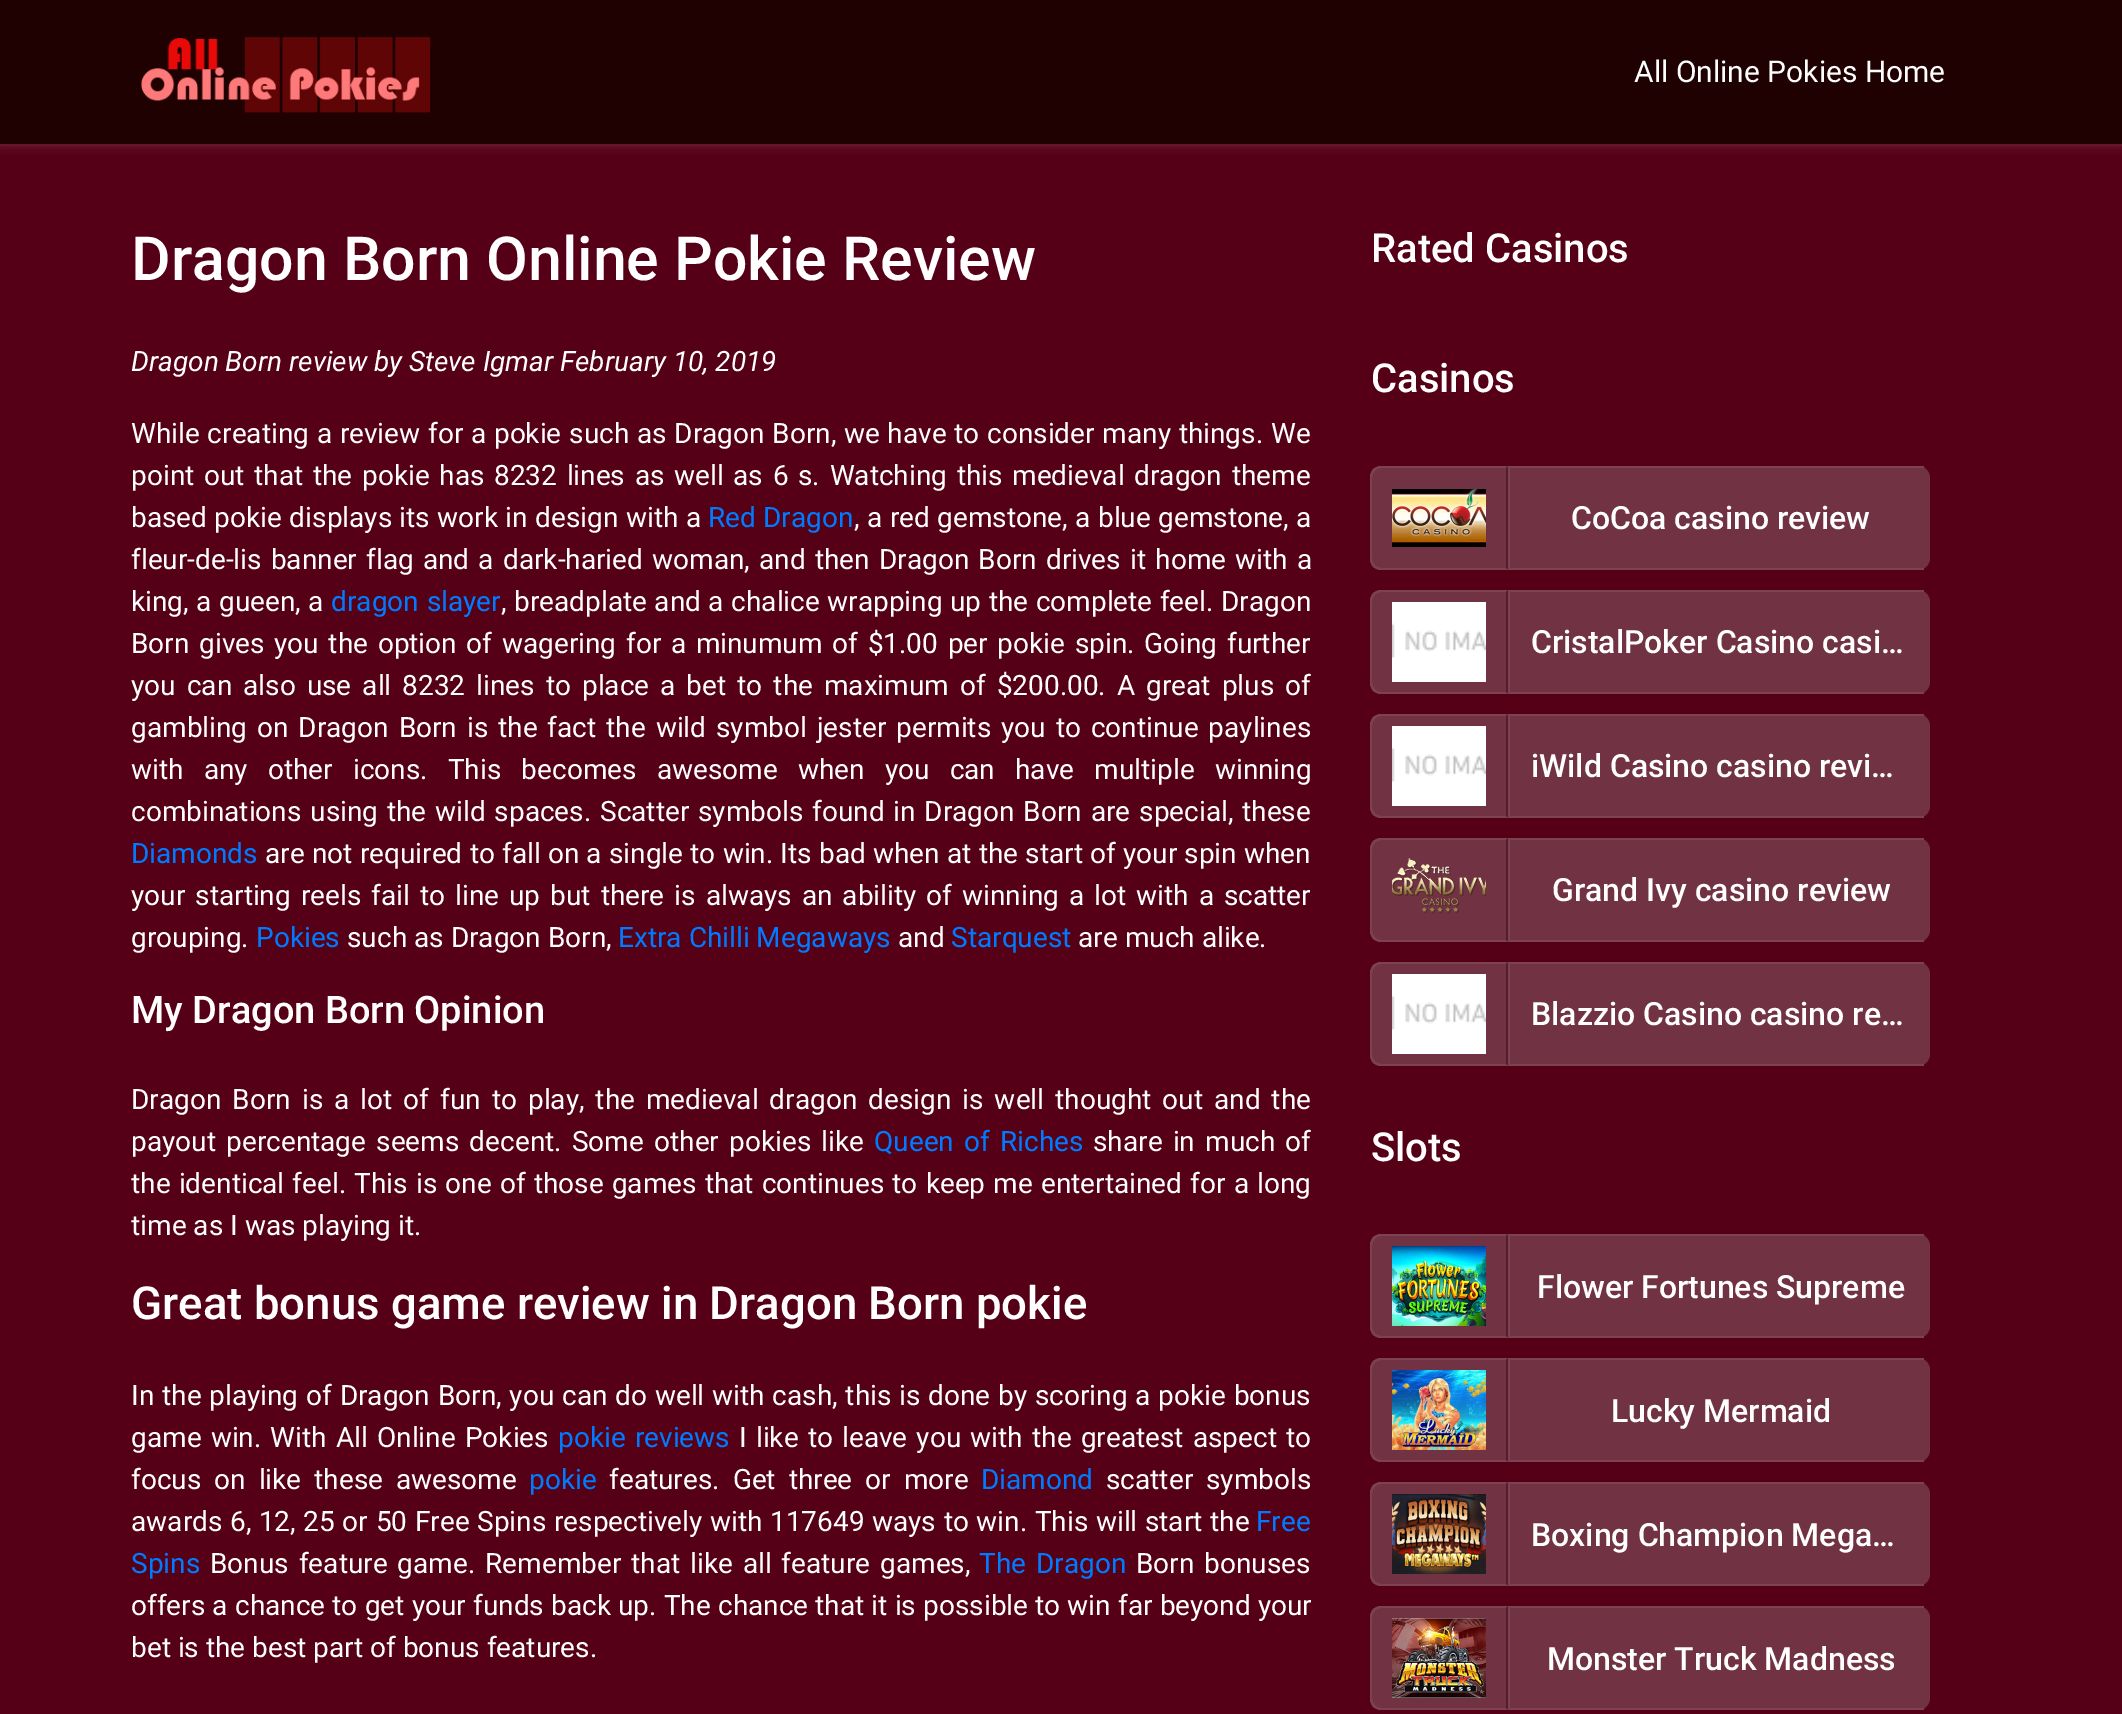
%!PS-Adobe-3.0
%%BoundingBox: 0 0 2122 1714
%%LanguageLevel: 3
%%Pages: 1
%%EndComments
%%BeginProlog
/setink { 3 { 255 div 3 1 roll } repeat setrgbcolor } def
/usefont { [ exch dup neg 0 0 3 -1 roll 0 0 ] selectfont } def
/drawtext { setink usefont moveto show } def
/fillbox { setink rectfill } def
/setalpha { dup .setfillconstantalpha .setstrokeconstantalpha } def
/rrect { 5 dict begin { /r /h /w /y /x } { exch def } forall
  x r add y moveto x w add y 2 copy h add r arct x w add y h add x 1 index r arct
  x y h add x y r arct x y 2 copy exch w add exch r arct closepath end } def
/softshadow { 12 dict begin { /a /b /q /h /w /y /x } { exch def } forall gsave /was 0 def
  9 -2 -9 { dup b mul 4 div /e exch def 1 sub .425 mul 2.718 exch exp 1 add a .99 .min exch div /now exch def
    1 1 now sub 1 was sub div sub setalpha /was now def
    w h .min e 2 mul add 0 gt { x e sub y e sub w e 2 mul add h e 2 mul add
      q e add b .6 mul add w h .min 2 div e add .min 0 .max rrect fill } if } for grestore end } def
/drawimage { 5 dict begin { /h /w /y /x /name } { exch def } forall
  gsave x y translate w h scale
  w h 8 [w 0 0 h 0 0] name (r) file false 3 colorimage grestore end } def
%%EndProlog
%%BeginSetup
<< /PageSize [2122 1714] /PageUsesTransparency true >> setpagedevice
%%EndSetup
%%Page: 1 1
0 .pushpdf14devicefilter
0 1714 translate 1 -1 scale
4 setmiterlimit
0 0 2122 1714 86 0 23 fillbox
255 255 255 setink
0 -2 2122 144 0 6 0.3 softshadow
0 0 2122 144 32 1 1 fillbox
(assets/img1.rgb) 141 37 290 76 drawimage
(All Online Pokies Home) 1634 82 /Roboto-Regular 30 255 255 255 drawtext
(Dragon Born Online Pokie Review) 131 280 /Roboto-Medium 60.75 255 255 255 drawtext
(Dragon Born review by Steve Igmar February 10, 2019) 131 371 /Roboto-Italic 28 255 255 255 drawtext
/Roboto-Regular 28 usefont
131 443 moveto 0.8 0 32 (While creating a review for a pokie such as Dragon Born, we have to consider many things. We) widthshow
131 485 moveto 2.75 0 32 (point out that the pokie has 8232 lines as well as 6 s. Watching this medieval dragon theme) widthshow
131 527 moveto 0.5 0 32 (based pokie displays its work in design with a) widthshow
(Red Dragon) 708 527 /Roboto-Regular 28 0 123 255 drawtext
255 255 255 setink
854 527 moveto 0.5 0 32 (, a red gemstone, a blue gemstone, a) widthshow
131 569 moveto 2.25 0 32 (fleur-de-lis banner flag and a dark-haried woman, and then Dragon Born drives it home with a) widthshow
131 611 moveto 0.6 0 32 (king, a gueen, a) widthshow
0 123 255 setink
331 611 moveto 1 0 32 (dragon slayer) widthshow
255 255 255 setink
501 611 moveto 0.6 0 32 (, breadplate and a chalice wrapping up the complete feel. Dragon) widthshow
131 653 moveto 2.75 0 32 (Born gives you the option of wagering for a minumum of $1.00 per pokie spin. Going further) widthshow
131 695 moveto 4.1 0 32 (you can also use all 8232 lines to place a bet to the maximum of $200.00. A great plus of) widthshow
131 737 moveto 3 0 32 (gambling on Dragon Born is the fact the wild symbol jester permits you to continue paylines) widthshow
131 779 moveto 13.25 0 32 (with any other icons. This becomes awesome when you can have multiple winning) widthshow
131 821 moveto 1.9 0 32 (combinations using the wild spaces. Scatter symbols found in Dragon Born are special, these) widthshow
(Diamonds) 131 863 /Roboto-Regular 28 0 123 255 drawtext
255 255 255 setink
265 863 moveto 0.3 0 32 (are not required to fall on a single to win. Its bad when at the start of your spin when) widthshow
131 905 moveto 3.1 0 32 (your starting reels fail to line up but there is always an ability of winning a lot with a scatter) widthshow
(grouping.) 131 947 /Roboto-Regular 28 255 255 255 drawtext
(Pokies) 256 947 /Roboto-Regular 28 0 123 255 drawtext
(such as Dragon Born,) 347 947 /Roboto-Regular 28 255 255 255 drawtext
(Extra Chilli Megaways) 618 947 /Roboto-Regular 28 0 123 255 drawtext
(and) 898 947 /Roboto-Regular 28 255 255 255 drawtext
(Starquest) 951 947 /Roboto-Regular 28 0 123 255 drawtext
(are much alike.) 1078 947 /Roboto-Regular 28 255 255 255 drawtext
(My Dragon Born Opinion) 131 1023 /Roboto-Medium 38 255 255 255 drawtext
/Roboto-Regular 28 usefont
131 1109 moveto 4.1 0 32 (Dragon Born is a lot of fun to play, the medieval dragon design is well thought out and the) widthshow
131 1151 moveto 3.25 0 32 (payout percentage seems decent. Some other pokies like) widthshow
0 123 255 setink
874 1151 moveto 3.25 0 32 (Queen of Riches) widthshow
255 255 255 setink
1093 1151 moveto 3.25 0 32 (share in much of) widthshow
131 1193 moveto 1.25 0 32 (the identical feel. This is one of those games that continues to keep me entertained for a long) widthshow
(time as I was playing it.) 131 1235 /Roboto-Regular 28 255 255 255 drawtext
(Great bonus game review in Dragon Born pokie) 131 1319 /Roboto-Medium 45.6 255 255 255 drawtext
/Roboto-Regular 28 usefont
131 1405 moveto 0.9 0 32 (In the playing of Dragon Born, you can do well with cash, this is done by scoring a pokie bonus) widthshow
131 1447 moveto 2.25 0 32 (game win. With All Online Pokies) widthshow
0 123 255 setink
558 1447 moveto 2.25 0 32 (pokie reviews) widthshow
255 255 255 setink
739 1447 moveto 2.25 0 32 (I like to leave you with the greatest aspect to) widthshow
131 1489 moveto 6 0 32 (focus on like these awesome) widthshow
(pokie) 529 1489 /Roboto-Regular 28 0 123 255 drawtext
255 255 255 setink
609 1489 moveto 6 0 32 (features. Get three or more) widthshow
(Diamond) 981 1489 /Roboto-Regular 28 0 123 255 drawtext
255 255 255 setink
1106 1489 moveto 6 0 32 (scatter symbols) widthshow
131 1531 moveto 0.7 0 32 (awards 6, 12, 25 or 50 Free Spins respectively with 117649 ways to win. This will start the) widthshow
(Free) 1256 1531 /Roboto-Regular 28 0 123 255 drawtext
(Spins) 131 1573 /Roboto-Regular 28 0 123 255 drawtext
255 255 255 setink
210 1573 moveto 3 0 32 (Bonus feature game. Remember that like all feature games,) widthshow
0 123 255 setink
979 1573 moveto 3 0 32 (The Dragon) widthshow
255 255 255 setink
1136 1573 moveto 3 0 32 (Born bonuses) widthshow
131 1615 moveto 0.25 0 32 (offers a chance to get your funds back up. The chance that it is possible to win far beyond your) widthshow
(bet is the best part of bonus features.) 131 1657 /Roboto-Regular 28 255 255 255 drawtext
(Rated Casinos) 1371 262 /Roboto-Medium 40 255 255 255 drawtext
(Casinos) 1371 392 /Roboto-Medium 40 255 255 255 drawtext
113 51 68 setink
1382 466 moveto 1508 466 lineto 1508 570 lineto 1382 570 lineto 1375.5 570 1370 564.5 1370 558 curveto 1370 478 lineto 1370 471.5 1375.5 466 1382 466 curveto closepath fill
125 66 82 setink
1382 466 moveto 1378 466 1376 467 1373 469 curveto 1375 471 lineto 1376 469 1379 468 1382 468 curveto 1506 468 lineto 1508 466 lineto closepath fill
84 28 44 setink
1508 466 moveto 1506 468 lineto 1506 568 lineto 1508 570 lineto closepath fill
125 66 82 setink
1508 570 moveto 1506 568 lineto 1382 568 lineto 1379 568 1376 567 1375 565 curveto 1373 567 lineto 1376 569 1378 570 1382 570 curveto closepath fill
1370 478 moveto 1370 558 lineto 1370 562 1371 564 1373 567 curveto 1375 565 lineto 1373 564 1372 561 1372 558 curveto 1372 478 lineto 1372 475 1373 472 1375 471 curveto 1373 469 lineto 1371 472 1370 474 1370 478 curveto closepath fill
(assets/img2.rgb) 1392 489 94 58 drawimage
113 51 68 setink
1508 466 moveto 1918 466 lineto 1924.5 466 1930 471.5 1930 478 curveto 1930 558 lineto 1930 564.5 1924.5 570 1918 570 curveto 1508 570 lineto closepath fill
1508 466 416 2 125 66 82 fillbox
1508 568 416 2 125 66 82 fillbox
1508 466 2 104 125 66 82 fillbox
(CoCoa casino review) 1571 529 /Roboto-Medium 32 255 255 255 drawtext
113 51 68 setink
1382 590 moveto 1508 590 lineto 1508 694 lineto 1382 694 lineto 1375.5 694 1370 688.5 1370 682 curveto 1370 602 lineto 1370 595.5 1375.5 590 1382 590 curveto closepath fill
125 66 82 setink
1382 590 moveto 1378 590 1376 591 1373 593 curveto 1375 595 lineto 1376 593 1379 592 1382 592 curveto 1506 592 lineto 1508 590 lineto closepath fill
84 28 44 setink
1508 590 moveto 1506 592 lineto 1506 692 lineto 1508 694 lineto closepath fill
125 66 82 setink
1508 694 moveto 1506 692 lineto 1382 692 lineto 1379 692 1376 691 1375 689 curveto 1373 691 lineto 1376 693 1378 694 1382 694 curveto closepath fill
1370 602 moveto 1370 682 lineto 1370 686 1371 688 1373 691 curveto 1375 689 lineto 1373 688 1372 685 1372 682 curveto 1372 602 lineto 1372 599 1373 596 1375 595 curveto 1373 593 lineto 1371 596 1370 598 1370 602 curveto closepath fill
(assets/img3.rgb) 1392 602 94 80 drawimage
113 51 68 setink
1508 590 moveto 1918 590 lineto 1924.5 590 1930 595.5 1930 602 curveto 1930 682 lineto 1930 688.5 1924.5 694 1918 694 curveto 1508 694 lineto closepath fill
1508 590 416 2 125 66 82 fillbox
1508 692 416 2 125 66 82 fillbox
1508 590 2 104 125 66 82 fillbox
(CristalPoker Casino casi…) 1531 653 /Roboto-Medium 32 255 255 255 drawtext
113 51 68 setink
1382 714 moveto 1508 714 lineto 1508 818 lineto 1382 818 lineto 1375.5 818 1370 812.5 1370 806 curveto 1370 726 lineto 1370 719.5 1375.5 714 1382 714 curveto closepath fill
125 66 82 setink
1382 714 moveto 1378 714 1376 715 1373 717 curveto 1375 719 lineto 1376 717 1379 716 1382 716 curveto 1506 716 lineto 1508 714 lineto closepath fill
84 28 44 setink
1508 714 moveto 1506 716 lineto 1506 816 lineto 1508 818 lineto closepath fill
125 66 82 setink
1508 818 moveto 1506 816 lineto 1382 816 lineto 1379 816 1376 815 1375 813 curveto 1373 815 lineto 1376 817 1378 818 1382 818 curveto closepath fill
1370 726 moveto 1370 806 lineto 1370 810 1371 812 1373 815 curveto 1375 813 lineto 1373 812 1372 809 1372 806 curveto 1372 726 lineto 1372 723 1373 720 1375 719 curveto 1373 717 lineto 1371 720 1370 722 1370 726 curveto closepath fill
(assets/img3.rgb) 1392 726 94 80 drawimage
113 51 68 setink
1508 714 moveto 1918 714 lineto 1924.5 714 1930 719.5 1930 726 curveto 1930 806 lineto 1930 812.5 1924.5 818 1918 818 curveto 1508 818 lineto closepath fill
1508 714 416 2 125 66 82 fillbox
1508 816 416 2 125 66 82 fillbox
1508 714 2 104 125 66 82 fillbox
(iWild Casino casino revi…) 1531 777 /Roboto-Medium 32 255 255 255 drawtext
113 51 68 setink
1382 838 moveto 1508 838 lineto 1508 942 lineto 1382 942 lineto 1375.5 942 1370 936.5 1370 930 curveto 1370 850 lineto 1370 843.5 1375.5 838 1382 838 curveto closepath fill
125 66 82 setink
1382 838 moveto 1378 838 1376 839 1373 841 curveto 1375 843 lineto 1376 841 1379 840 1382 840 curveto 1506 840 lineto 1508 838 lineto closepath fill
84 28 44 setink
1508 838 moveto 1506 840 lineto 1506 940 lineto 1508 942 lineto closepath fill
125 66 82 setink
1508 942 moveto 1506 940 lineto 1382 940 lineto 1379 940 1376 939 1375 937 curveto 1373 939 lineto 1376 941 1378 942 1382 942 curveto closepath fill
1370 850 moveto 1370 930 lineto 1370 934 1371 936 1373 939 curveto 1375 937 lineto 1373 936 1372 933 1372 930 curveto 1372 850 lineto 1372 847 1373 844 1375 843 curveto 1373 841 lineto 1371 844 1370 846 1370 850 curveto closepath fill
(assets/img4.rgb) 1392 858 94 56 drawimage
113 51 68 setink
1508 838 moveto 1918 838 lineto 1924.5 838 1930 843.5 1930 850 curveto 1930 930 lineto 1930 936.5 1924.5 942 1918 942 curveto 1508 942 lineto closepath fill
1508 838 416 2 125 66 82 fillbox
1508 940 416 2 125 66 82 fillbox
1508 838 2 104 125 66 82 fillbox
(Grand Ivy casino review) 1552 901 /Roboto-Medium 32 255 255 255 drawtext
113 51 68 setink
1382 962 moveto 1508 962 lineto 1508 1066 lineto 1382 1066 lineto 1375.5 1066 1370 1060.5 1370 1054 curveto 1370 974 lineto 1370 967.5 1375.5 962 1382 962 curveto closepath fill
125 66 82 setink
1382 962 moveto 1378 962 1376 963 1373 965 curveto 1375 967 lineto 1376 965 1379 964 1382 964 curveto 1506 964 lineto 1508 962 lineto closepath fill
84 28 44 setink
1508 962 moveto 1506 964 lineto 1506 1064 lineto 1508 1066 lineto closepath fill
125 66 82 setink
1508 1066 moveto 1506 1064 lineto 1382 1064 lineto 1379 1064 1376 1063 1375 1061 curveto 1373 1063 lineto 1376 1065 1378 1066 1382 1066 curveto closepath fill
1370 974 moveto 1370 1054 lineto 1370 1058 1371 1060 1373 1063 curveto 1375 1061 lineto 1373 1060 1372 1057 1372 1054 curveto 1372 974 lineto 1372 971 1373 968 1375 967 curveto 1373 965 lineto 1371 968 1370 970 1370 974 curveto closepath fill
(assets/img5.rgb) 1392 974 94 80 drawimage
113 51 68 setink
1508 962 moveto 1918 962 lineto 1924.5 962 1930 967.5 1930 974 curveto 1930 1054 lineto 1930 1060.5 1924.5 1066 1918 1066 curveto 1508 1066 lineto closepath fill
1508 962 416 2 125 66 82 fillbox
1508 1064 416 2 125 66 82 fillbox
1508 962 2 104 125 66 82 fillbox
(Blazzio Casino casino re…) 1531 1025 /Roboto-Medium 32 255 255 255 drawtext
(Slots) 1371 1161 /Roboto-Medium 40 255 255 255 drawtext
113 51 68 setink
1382 1234 moveto 1508 1234 lineto 1508 1338 lineto 1382 1338 lineto 1375.5 1338 1370 1332.5 1370 1326 curveto 1370 1246 lineto 1370 1239.5 1375.5 1234 1382 1234 curveto closepath fill
125 66 82 setink
1382 1234 moveto 1378 1234 1376 1235 1373 1237 curveto 1375 1239 lineto 1376 1237 1379 1236 1382 1236 curveto 1506 1236 lineto 1508 1234 lineto closepath fill
84 28 44 setink
1508 1234 moveto 1506 1236 lineto 1506 1336 lineto 1508 1338 lineto closepath fill
125 66 82 setink
1508 1338 moveto 1506 1336 lineto 1382 1336 lineto 1379 1336 1376 1335 1375 1333 curveto 1373 1335 lineto 1376 1337 1378 1338 1382 1338 curveto closepath fill
1370 1246 moveto 1370 1326 lineto 1370 1330 1371 1332 1373 1335 curveto 1375 1333 lineto 1373 1332 1372 1329 1372 1326 curveto 1372 1246 lineto 1372 1243 1373 1240 1375 1239 curveto 1373 1237 lineto 1371 1240 1370 1242 1370 1246 curveto closepath fill
(assets/img6.rgb) 1392 1246 94 80 drawimage
113 51 68 setink
1508 1234 moveto 1918 1234 lineto 1924.5 1234 1930 1239.5 1930 1246 curveto 1930 1326 lineto 1930 1332.5 1924.5 1338 1918 1338 curveto 1508 1338 lineto closepath fill
1508 1234 416 2 125 66 82 fillbox
1508 1336 416 2 125 66 82 fillbox
1508 1234 2 104 125 66 82 fillbox
(Flower Fortunes Supreme) 1537 1298 /Roboto-Medium 32 255 255 255 drawtext
113 51 68 setink
1382 1358 moveto 1508 1358 lineto 1508 1462 lineto 1382 1462 lineto 1375.5 1462 1370 1456.5 1370 1450 curveto 1370 1370 lineto 1370 1363.5 1375.5 1358 1382 1358 curveto closepath fill
125 66 82 setink
1382 1358 moveto 1378 1358 1376 1359 1373 1361 curveto 1375 1363 lineto 1376 1361 1379 1360 1382 1360 curveto 1506 1360 lineto 1508 1358 lineto closepath fill
84 28 44 setink
1508 1358 moveto 1506 1360 lineto 1506 1460 lineto 1508 1462 lineto closepath fill
125 66 82 setink
1508 1462 moveto 1506 1460 lineto 1382 1460 lineto 1379 1460 1376 1459 1375 1457 curveto 1373 1459 lineto 1376 1461 1378 1462 1382 1462 curveto closepath fill
1370 1370 moveto 1370 1450 lineto 1370 1454 1371 1456 1373 1459 curveto 1375 1457 lineto 1373 1456 1372 1453 1372 1450 curveto 1372 1370 lineto 1372 1367 1373 1364 1375 1363 curveto 1373 1361 lineto 1371 1364 1370 1366 1370 1370 curveto closepath fill
(assets/img7.rgb) 1392 1370 94 80 drawimage
113 51 68 setink
1508 1358 moveto 1918 1358 lineto 1924.5 1358 1930 1363.5 1930 1370 curveto 1930 1450 lineto 1930 1456.5 1924.5 1462 1918 1462 curveto 1508 1462 lineto closepath fill
1508 1358 416 2 125 66 82 fillbox
1508 1460 416 2 125 66 82 fillbox
1508 1358 2 104 125 66 82 fillbox
(Lucky Mermaid) 1611 1422 /Roboto-Medium 32 255 255 255 drawtext
113 51 68 setink
1382 1482 moveto 1508 1482 lineto 1508 1586 lineto 1382 1586 lineto 1375.5 1586 1370 1580.5 1370 1574 curveto 1370 1494 lineto 1370 1487.5 1375.5 1482 1382 1482 curveto closepath fill
125 66 82 setink
1382 1482 moveto 1378 1482 1376 1483 1373 1485 curveto 1375 1487 lineto 1376 1485 1379 1484 1382 1484 curveto 1506 1484 lineto 1508 1482 lineto closepath fill
84 28 44 setink
1508 1482 moveto 1506 1484 lineto 1506 1584 lineto 1508 1586 lineto closepath fill
125 66 82 setink
1508 1586 moveto 1506 1584 lineto 1382 1584 lineto 1379 1584 1376 1583 1375 1581 curveto 1373 1583 lineto 1376 1585 1378 1586 1382 1586 curveto closepath fill
1370 1494 moveto 1370 1574 lineto 1370 1578 1371 1580 1373 1583 curveto 1375 1581 lineto 1373 1580 1372 1577 1372 1574 curveto 1372 1494 lineto 1372 1491 1373 1488 1375 1487 curveto 1373 1485 lineto 1371 1488 1370 1490 1370 1494 curveto closepath fill
(assets/img8.rgb) 1392 1494 94 80 drawimage
113 51 68 setink
1508 1482 moveto 1918 1482 lineto 1924.5 1482 1930 1487.5 1930 1494 curveto 1930 1574 lineto 1930 1580.5 1924.5 1586 1918 1586 curveto 1508 1586 lineto closepath fill
1508 1482 416 2 125 66 82 fillbox
1508 1584 416 2 125 66 82 fillbox
1508 1482 2 104 125 66 82 fillbox
(Boxing Champion Mega…) 1531 1546 /Roboto-Medium 32 255 255 255 drawtext
113 51 68 setink
1382 1606 moveto 1508 1606 lineto 1508 1710 lineto 1382 1710 lineto 1375.5 1710 1370 1704.5 1370 1698 curveto 1370 1618 lineto 1370 1611.5 1375.5 1606 1382 1606 curveto closepath fill
125 66 82 setink
1382 1606 moveto 1378 1606 1376 1607 1373 1609 curveto 1375 1611 lineto 1376 1609 1379 1608 1382 1608 curveto 1506 1608 lineto 1508 1606 lineto closepath fill
84 28 44 setink
1508 1606 moveto 1506 1608 lineto 1506 1708 lineto 1508 1710 lineto closepath fill
125 66 82 setink
1508 1710 moveto 1506 1708 lineto 1382 1708 lineto 1379 1708 1376 1707 1375 1705 curveto 1373 1707 lineto 1376 1709 1378 1710 1382 1710 curveto closepath fill
1370 1618 moveto 1370 1698 lineto 1370 1702 1371 1704 1373 1707 curveto 1375 1705 lineto 1373 1704 1372 1701 1372 1698 curveto 1372 1618 lineto 1372 1615 1373 1612 1375 1611 curveto 1373 1609 lineto 1371 1612 1370 1614 1370 1618 curveto closepath fill
(assets/img9.rgb) 1392 1618 94 80 drawimage
113 51 68 setink
1508 1606 moveto 1918 1606 lineto 1924.5 1606 1930 1611.5 1930 1618 curveto 1930 1698 lineto 1930 1704.5 1924.5 1710 1918 1710 curveto 1508 1710 lineto closepath fill
1508 1606 416 2 125 66 82 fillbox
1508 1708 416 2 125 66 82 fillbox
1508 1606 2 104 125 66 82 fillbox
(Monster Truck Madness) 1547 1670 /Roboto-Medium 32 255 255 255 drawtext
.poppdf14devicefilter showpage
%%EOF
